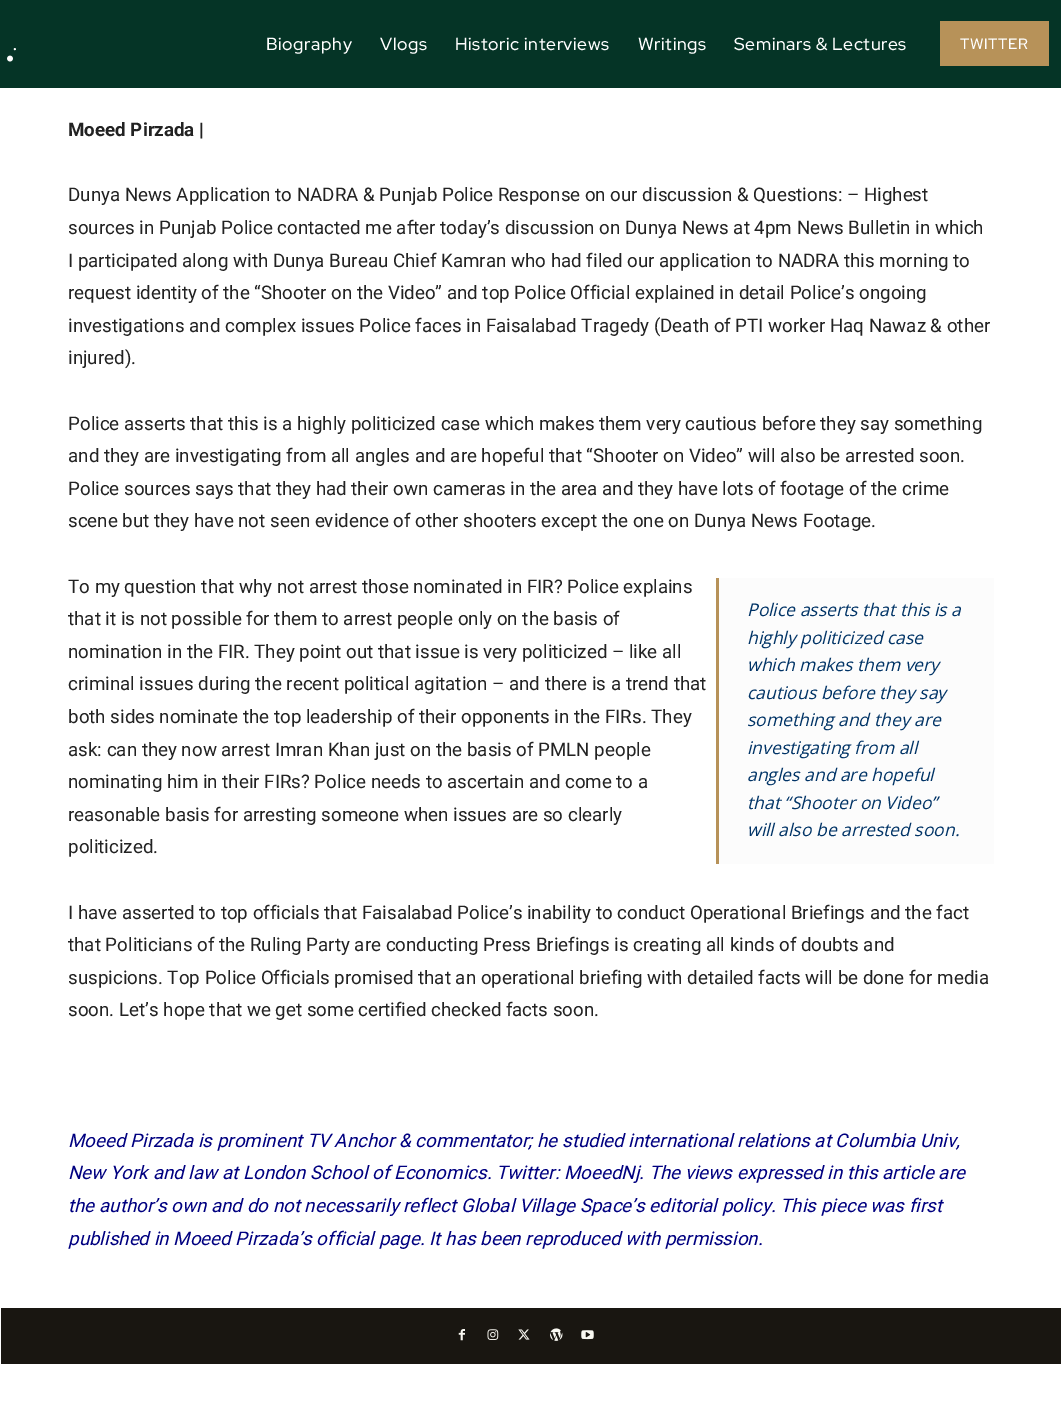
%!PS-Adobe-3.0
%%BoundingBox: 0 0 1061 1413
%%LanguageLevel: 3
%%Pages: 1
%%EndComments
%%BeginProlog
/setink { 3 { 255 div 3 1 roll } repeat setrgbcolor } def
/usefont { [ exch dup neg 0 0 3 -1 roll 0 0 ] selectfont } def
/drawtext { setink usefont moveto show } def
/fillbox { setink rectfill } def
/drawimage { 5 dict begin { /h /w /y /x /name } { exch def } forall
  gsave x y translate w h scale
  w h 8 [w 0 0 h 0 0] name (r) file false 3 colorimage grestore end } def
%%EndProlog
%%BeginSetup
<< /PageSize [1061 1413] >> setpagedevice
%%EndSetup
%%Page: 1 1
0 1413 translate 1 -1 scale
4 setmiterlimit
0 0 1061 1413 255 255 255 fillbox
0 0 1061 88 5 52 38 fillbox
(.) 13 50 /GildaDisplay-Regular 22 255 255 255 drawtext
(assets/img1.rgb) 7 55 6 7 drawimage
/RedHatDisplay-Medium 17.5 usefont
266 50 moveto 0.6 0 (Biography) ashow
380 50 moveto 0.6 0 (Vlogs) ashow
455 50 moveto 0.6 0 (Historic interviews) ashow
638 50 moveto 0.6 0 (Writings) ashow
734 50 moveto 0.6 0 (Seminars & Lectures) ashow
940 21 109 45 183 146 89 fillbox
/RedHatDisplay-Medium 15 usefont
255 255 255 setink
960 49 moveto 0.6 0 (TWITTER) ashow
(Moeed Pirzada |) 68 136 /Roboto-Bold 18.75 34 34 34 drawtext
(Dunya News Application to NADRA & Punjab Police Response on our discussion & Questions: – Highest) 68 201 /Roboto-Regular 18.75 34 34 34 drawtext
(sources in Punjab Police contacted me after today’s discussion on Dunya News at 4pm News Bulletin in which) 68 234 /Roboto-Regular 18.75 34 34 34 drawtext
(I participated along with Dunya Bureau Chief Kamran who had filed our application to NADRA this morning to) 68 267 /Roboto-Regular 18.75 34 34 34 drawtext
(request identity of the “Shooter on the Video” and top Police Official explained in detail Police’s ongoing) 68 299 /Roboto-Regular 18.75 34 34 34 drawtext
(investigations and complex issues Police faces in Faisalabad Tragedy \(Death of PTI worker Haq Nawaz & other) 68 332 /Roboto-Regular 18.75 34 34 34 drawtext
(injured\).) 68 364 /Roboto-Regular 18.75 34 34 34 drawtext
(Police asserts that this is a highly politicized case which makes them very cautious before they say something) 68 430 /Roboto-Regular 18.75 34 34 34 drawtext
(and they are investigating from all angles and are hopeful that “Shooter on Video” will also be arrested soon.) 68 462 /Roboto-Regular 18.75 34 34 34 drawtext
(Police sources says that they had their own cameras in the area and they have lots of footage of the crime) 68 495 /Roboto-Regular 18.75 34 34 34 drawtext
(scene but they have not seen evidence of other shooters except the one on Dunya News Footage.) 68 527 /Roboto-Regular 18.75 34 34 34 drawtext
(To my question that why not arrest those nominated in FIR? Police explains) 68 593 /Roboto-Regular 18.75 34 34 34 drawtext
(that it is not possible for them to arrest people only on the basis of) 68 625 /Roboto-Regular 18.75 34 34 34 drawtext
(nomination in the FIR. They point out that issue is very politicized – like all) 68 658 /Roboto-Regular 18.75 34 34 34 drawtext
(criminal issues during the recent political agitation – and there is a trend that) 68 690 /Roboto-Regular 18.75 34 34 34 drawtext
(both sides nominate the top leadership of their opponents in the FIRs. They) 68 723 /Roboto-Regular 18.75 34 34 34 drawtext
(ask: can they now arrest Imran Khan just on the basis of PMLN people) 68 756 /Roboto-Regular 18.75 34 34 34 drawtext
(nominating him in their FIRs? Police needs to ascertain and come to a) 68 788 /Roboto-Regular 18.75 34 34 34 drawtext
(reasonable basis for arresting someone when issues are so clearly) 68 821 /Roboto-Regular 18.75 34 34 34 drawtext
(politicized.) 68 853 /Roboto-Regular 18.75 34 34 34 drawtext
719 578 275 286 252 252 252 fillbox
716 578 3 286 183 146 89 fillbox
(Police asserts that this is a) 747 616 /OpenSans-Italic 17.5 0 51 102 drawtext
(highly politicized case) 747 644 /OpenSans-Italic 17.5 0 51 102 drawtext
(which makes them very) 747 671 /OpenSans-Italic 17.5 0 51 102 drawtext
(cautious before they say) 747 699 /OpenSans-Italic 17.5 0 51 102 drawtext
(something and they are) 747 726 /OpenSans-Italic 17.5 0 51 102 drawtext
(investigating from all) 747 754 /OpenSans-Italic 17.5 0 51 102 drawtext
(angles and are hopeful) 747 781 /OpenSans-Italic 17.5 0 51 102 drawtext
(that “Shooter on Video”) 747 809 /OpenSans-Italic 17.5 0 51 102 drawtext
(will also be arrested soon.) 747 836 /OpenSans-Italic 17.5 0 51 102 drawtext
(I have asserted to top officials that Faisalabad Police’s inability to conduct Operational Briefings and the fact) 68 919 /Roboto-Regular 18.75 34 34 34 drawtext
(that Politicians of the Ruling Party are conducting Press Briefings is creating all kinds of doubts and) 68 951 /Roboto-Regular 18.75 34 34 34 drawtext
(suspicions. Top Police Officials promised that an operational briefing with detailed facts will be done for media) 68 984 /Roboto-Regular 18.75 34 34 34 drawtext
(soon. Let’s hope that we get some certified checked facts soon.) 68 1016 /Roboto-Regular 18.75 34 34 34 drawtext
(Moeed Pirzada is prominent TV Anchor & commentator; he studied international relations at Columbia Univ,) 68 1147 /Roboto-Italic 18.75 0 0 128 drawtext
(New York and law at London School of Economics. Twitter: MoeedNj. The views expressed in this article are) 68 1179 /Roboto-Italic 18.75 0 0 128 drawtext
(the author’s own and do not necessarily reflect Global Village Space’s editorial policy. This piece was first) 68 1212 /Roboto-Italic 18.75 0 0 128 drawtext
(published in Moeed Pirzada’s official page. It has been reproduced with permission.) 68 1245 /Roboto-Italic 18.75 0 0 128 drawtext
1 1308 1060 56 25 22 17 fillbox
(assets/img2.rgb) 458 1329 7 12 drawimage
(assets/img3.rgb) 487 1329 12 11 drawimage
(assets/img4.rgb) 518 1329 12 11 drawimage
(assets/img5.rgb) 550 1328 13 13 drawimage
(assets/img6.rgb) 581 1330 13 10 drawimage
showpage
%%EOF
